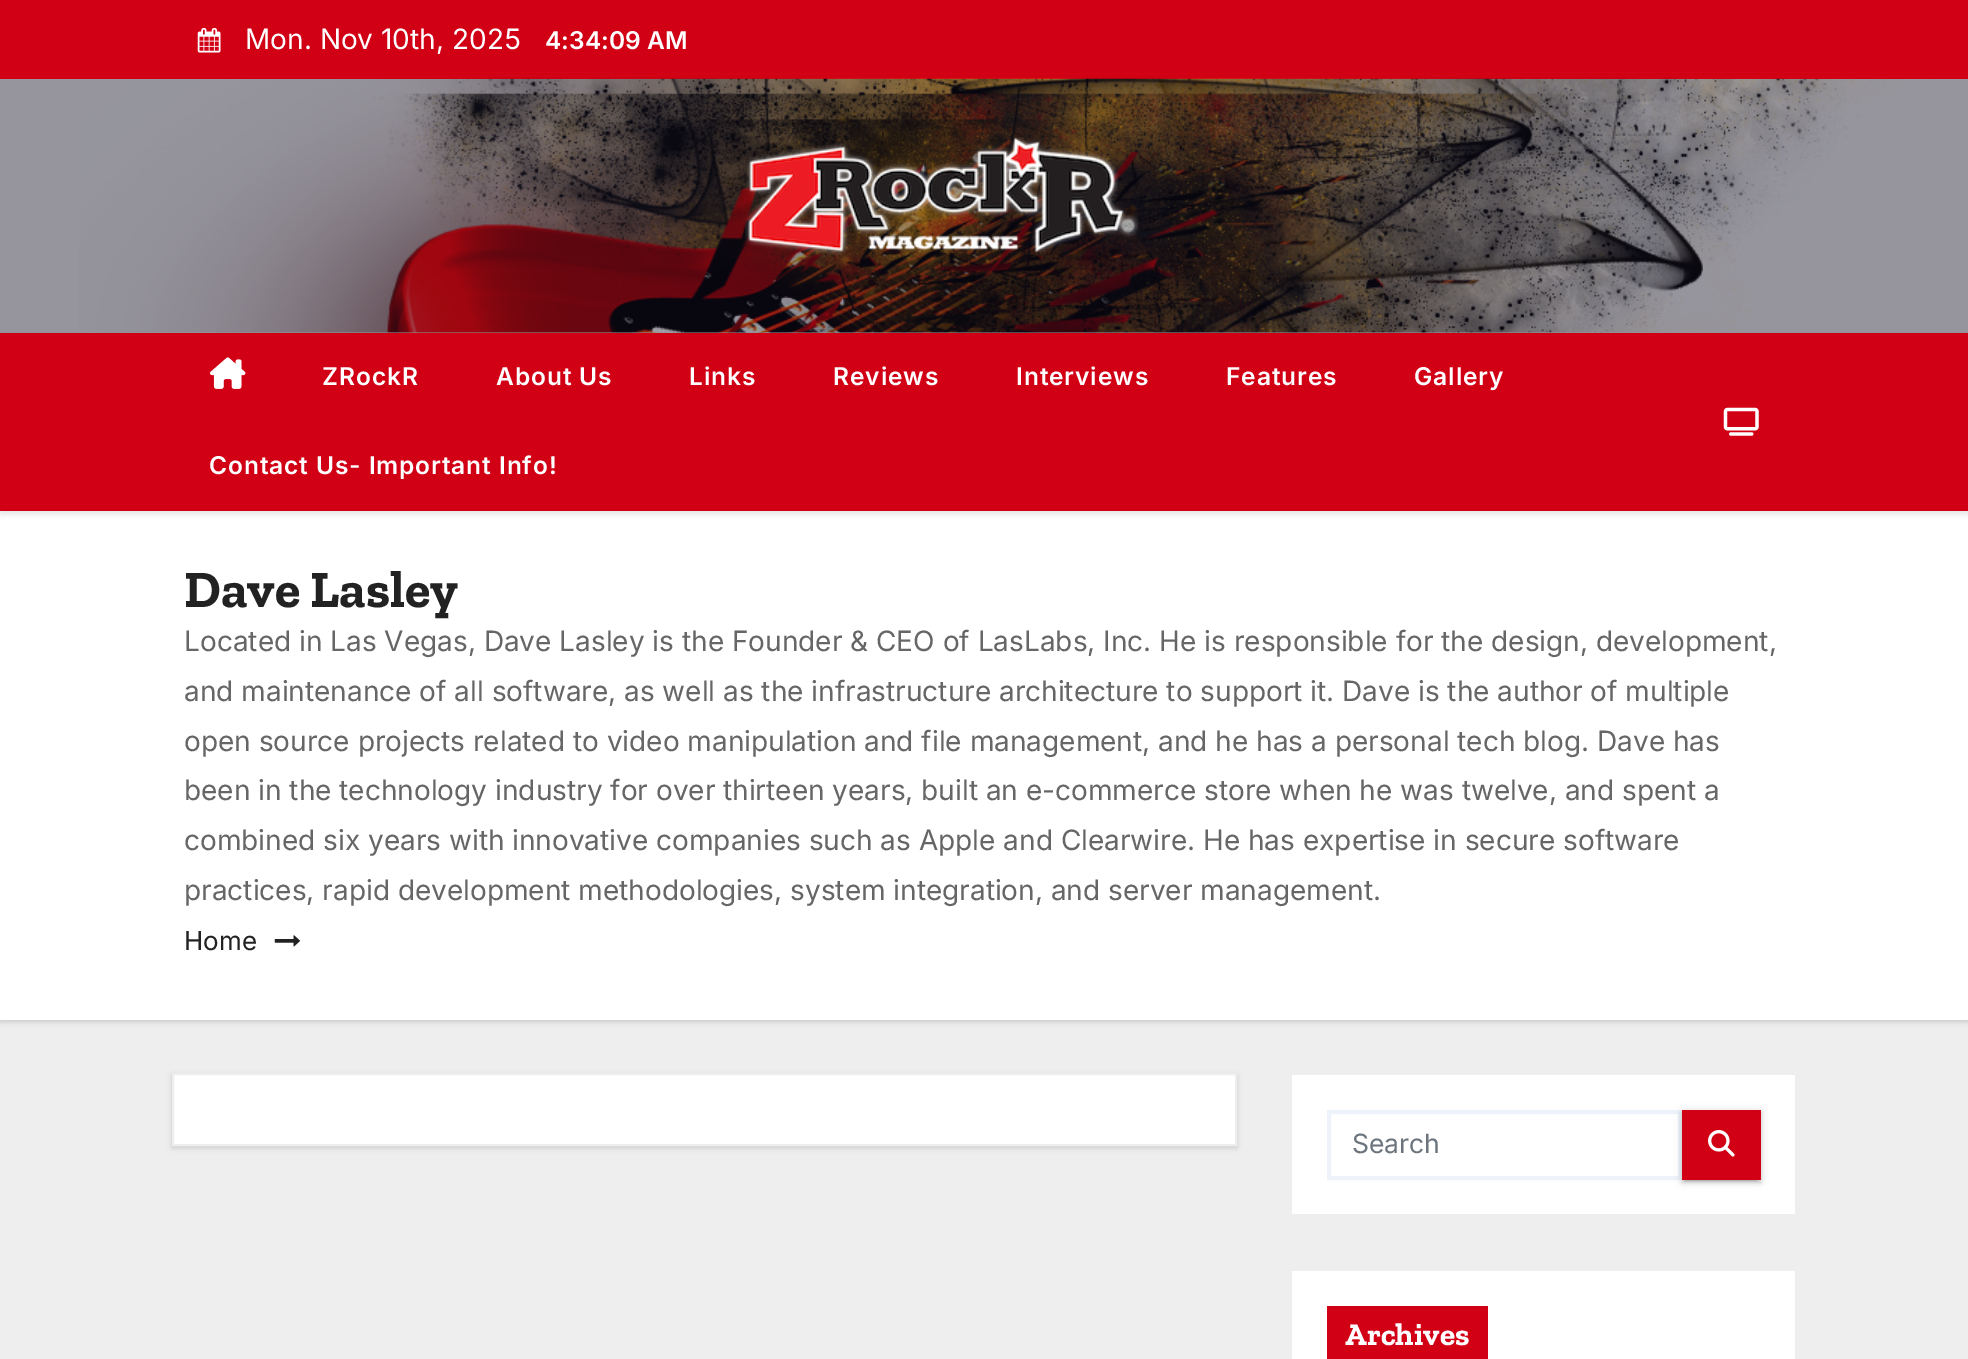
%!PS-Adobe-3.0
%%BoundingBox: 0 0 1968 1359
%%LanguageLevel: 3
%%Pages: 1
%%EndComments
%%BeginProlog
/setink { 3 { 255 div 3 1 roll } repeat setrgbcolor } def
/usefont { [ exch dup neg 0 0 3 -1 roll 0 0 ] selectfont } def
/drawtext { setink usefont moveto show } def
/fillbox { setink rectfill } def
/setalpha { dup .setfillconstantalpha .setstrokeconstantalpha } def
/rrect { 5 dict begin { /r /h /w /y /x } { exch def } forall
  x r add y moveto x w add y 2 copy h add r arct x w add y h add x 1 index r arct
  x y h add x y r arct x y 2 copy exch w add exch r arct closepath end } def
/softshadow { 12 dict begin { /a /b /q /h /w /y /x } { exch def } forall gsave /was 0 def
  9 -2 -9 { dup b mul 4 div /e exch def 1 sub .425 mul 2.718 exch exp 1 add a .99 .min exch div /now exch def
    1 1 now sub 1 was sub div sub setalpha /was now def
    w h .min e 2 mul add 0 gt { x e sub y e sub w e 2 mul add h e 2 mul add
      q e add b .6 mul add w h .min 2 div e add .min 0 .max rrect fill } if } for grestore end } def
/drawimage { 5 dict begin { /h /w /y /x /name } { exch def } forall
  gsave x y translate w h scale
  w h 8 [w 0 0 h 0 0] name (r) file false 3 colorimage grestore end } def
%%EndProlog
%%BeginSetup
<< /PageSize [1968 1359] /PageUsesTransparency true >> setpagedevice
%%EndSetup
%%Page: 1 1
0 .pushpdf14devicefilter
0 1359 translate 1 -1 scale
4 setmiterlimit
0 0 1968 1359 238 238 238 fillbox
0 79 1968 254 150 149 158 fillbox
0 0 1968 79 209 0 20 fillbox
(assets/img1.rgb) 197 28 24 25 drawimage
(Mon. Nov 10th, 2025) 245 49 /Inter-Regular 28 255 255 255 drawtext
(4:34:09 AM) 545 49 /Inter-SemiBold 24.5 255 255 255 drawtext
(assets/img2.rgb) 79 78 1853 255 drawimage
(assets/img3.rgb) 745 137 395 118 drawimage
0 0 0 setink
0 513 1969 509 0 2.5 0.15 softshadow
0 511 1968 509 255 255 255 fillbox
0 0 0 setink
0 336 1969 179 0 2 0.08 softshadow
0 333 1968 178 209 0 20 fillbox
(assets/img4.rgb) 210 357 36 32 drawimage
255 255 255 setink
322 385 moveto 0.9 0 (ZRockR) ashow
496 385 moveto 0.9 0 (About Us) ashow
689 385 moveto 0.9 0 (Links) ashow
833 385 moveto 0.9 0 (Reviews) ashow
1016 385 moveto 0.9 0 (Interviews) ashow
1226 385 moveto 0.9 0 (Features) ashow
1414 385 moveto 0.9 0 (Gallery) ashow
209 474 moveto 0.9 0 (Contact Us- Important Info!) ashow
(assets/img5.rgb) 1723 407 36 29 drawimage
(Dave Lasley) 184 607 /ZillaSlab-Bold 52.5 34 34 34 drawtext
(Located in Las Vegas, Dave Lasley is the Founder & CEO of LasLabs, Inc. He is responsible for the design, development,) 184 651 /Inter-Regular 28 102 102 102 drawtext
(and maintenance of all software, as well as the infrastructure architecture to support it. Dave is the author of multiple) 184 701 /Inter-Regular 28 102 102 102 drawtext
(open source projects related to video manipulation and file management, and he has a personal tech blog. Dave has) 184 751 /Inter-Regular 28 102 102 102 drawtext
(been in the technology industry for over thirteen years, built an e-commerce store when he was twelve, and spent a) 184 800 /Inter-Regular 28 102 102 102 drawtext
(combined six years with innovative companies such as Apple and Clearwire. He has expertise in secure software) 184 850 /Inter-Regular 28 102 102 102 drawtext
(practices, rapid development methodologies, system integration, and server management.) 184 900 /Inter-Regular 28 102 102 102 drawtext
(Home) 184 950 /Inter-Regular 26 34 34 34 drawtext
(assets/img6.rgb) 274 935 26 12 drawimage
0 0 0 setink
172 1075 1065 73 0 2.5 0.15 softshadow
255 255 255 setink
173 1074 moveto 1236 1074 lineto 1236 1145 lineto 173 1145 lineto closepath gsave fill grestore
238 238 238 setink
2 setlinewidth
stroke
1292 1075 503 139 255 255 255 fillbox
238 243 251 setink
4 setlinewidth
1329 1112 351 66 rectstroke
(Search) 1352 1153 /Inter-Regular 26.5 108 117 125 drawtext
0 0 0 setink
1682 1111 79 70 0 4.5 0.12 softshadow
1685 1118 72 63 0 1 0.2 softshadow
1682 1113 79 70 0 2 0.14 softshadow
1682 1110 79 70 209 0 20 fillbox
(assets/img7.rgb) 1708 1130 27 27 drawimage
1292 1271 503 88 255 255 255 fillbox
1327 1306 161 53 209 0 20 fillbox
(Archives) 1345 1345 /ZillaSlab-Bold 31.5 255 255 255 drawtext
.poppdf14devicefilter showpage
%%EOF
